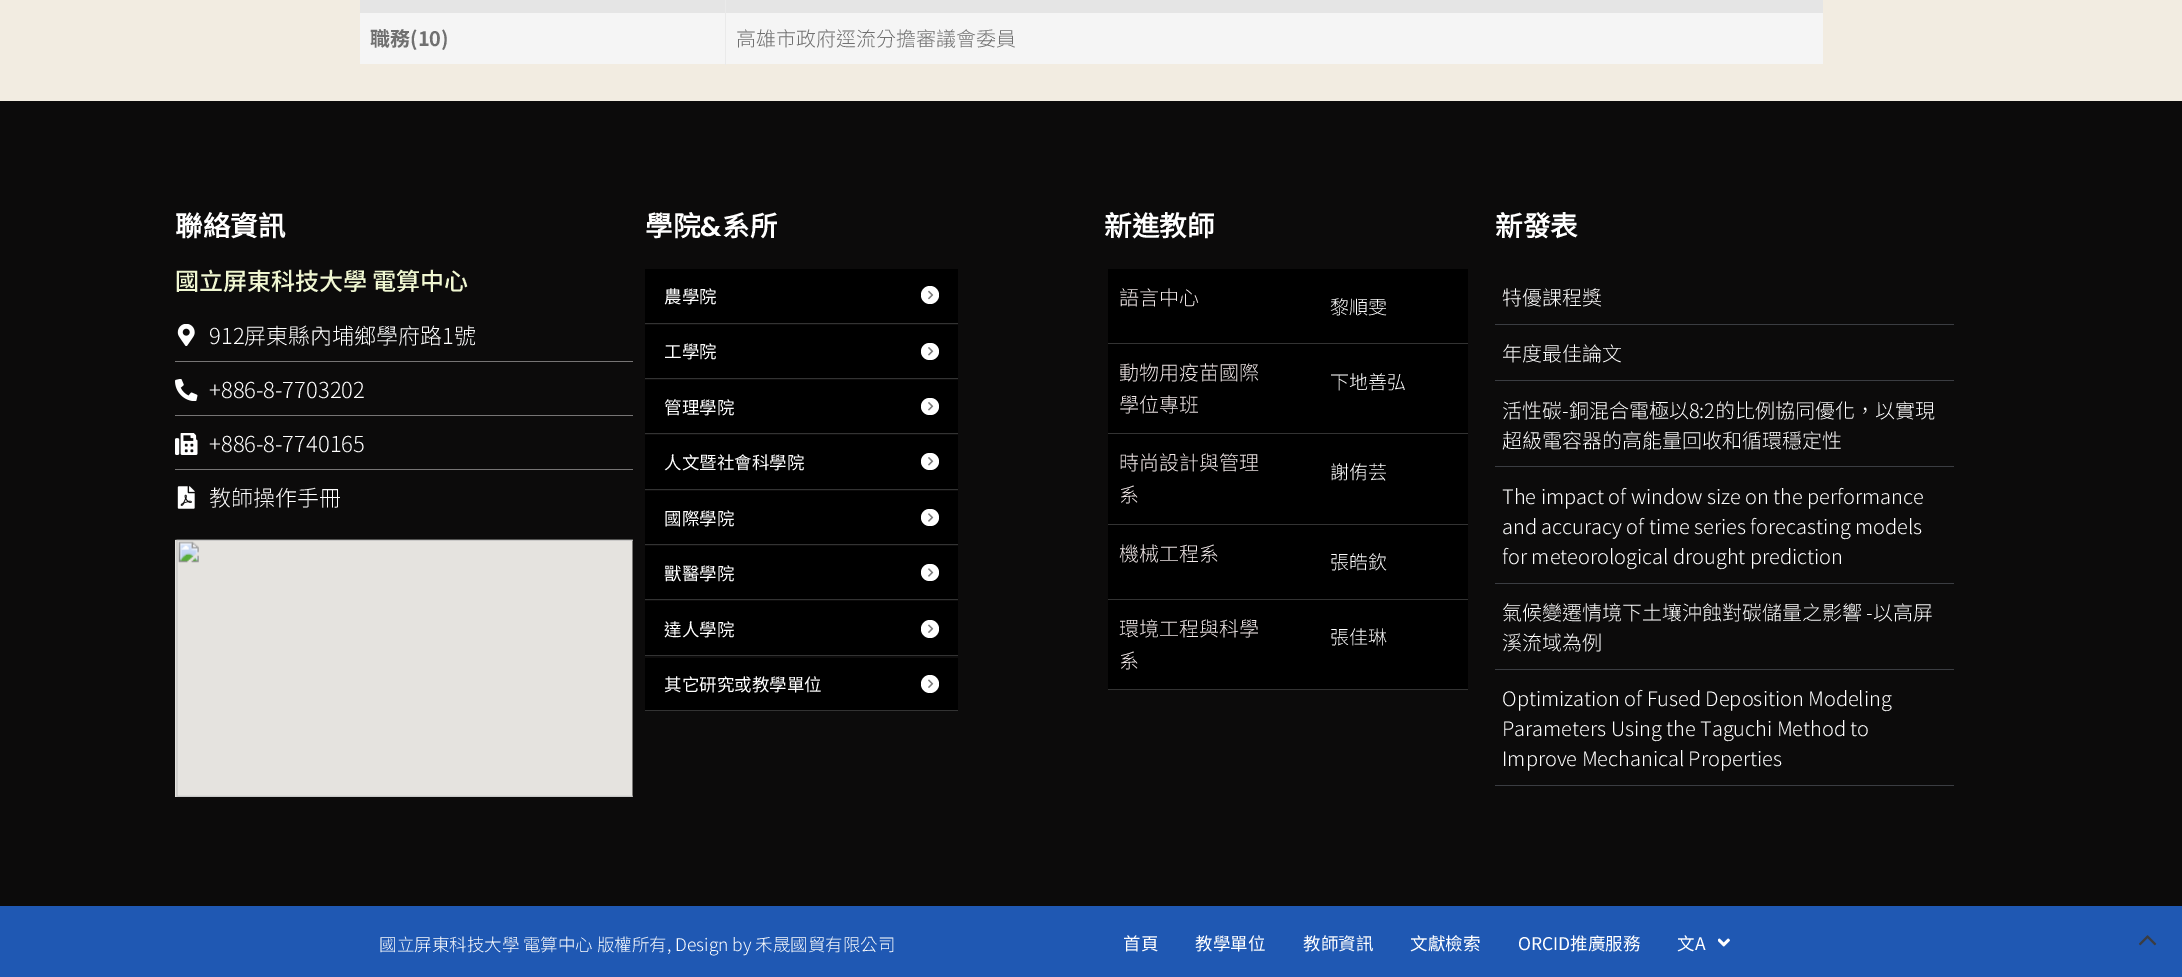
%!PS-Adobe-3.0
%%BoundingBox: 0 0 2182 977
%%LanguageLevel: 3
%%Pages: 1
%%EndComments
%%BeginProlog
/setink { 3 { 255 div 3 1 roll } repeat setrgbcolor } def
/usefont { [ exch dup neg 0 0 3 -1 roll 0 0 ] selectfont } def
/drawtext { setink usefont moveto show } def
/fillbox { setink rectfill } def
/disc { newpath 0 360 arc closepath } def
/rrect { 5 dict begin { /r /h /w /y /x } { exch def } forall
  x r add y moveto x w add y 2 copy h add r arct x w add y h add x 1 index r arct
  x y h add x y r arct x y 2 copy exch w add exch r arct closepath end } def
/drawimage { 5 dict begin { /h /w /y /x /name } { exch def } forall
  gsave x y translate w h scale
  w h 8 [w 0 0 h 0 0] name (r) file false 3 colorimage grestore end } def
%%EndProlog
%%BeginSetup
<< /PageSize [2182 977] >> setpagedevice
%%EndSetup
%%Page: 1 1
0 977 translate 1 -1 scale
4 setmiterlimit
0 0 2182 977 242 236 225 fillbox
360 0 1463 13 229 229 229 fillbox
360 13 365 51 245 245 245 fillbox
725 0 1 65 234 234 234 fillbox
(職務\(10\)) 370 46 /NotoSansTC-Bold 20 112 112 112 drawtext
726 13 1097 51 245 245 245 fillbox
(高雄市政府逕流分擔審議會委員) 736 46 /NotoSansTC-Light 20 112 112 112 drawtext
0 101 2182 805 12 11 11 fillbox
(聯絡資訊) 175 236 /NotoSansCJKTC-Bold 27.5 255 255 255 drawtext
(國立屏東科技大學 電算中心) 175 290 /NotoSansTC-Medium 24 240 247 210 drawtext
(assets/img1.rgb) 177 324 18 22 drawimage
(912屏東縣內埔鄉學府路1號) 209 344 /NotoSansTC-Light 22 255 255 255 drawtext
175 361 458 1 119 117 117 fillbox
(assets/img2.rgb) 175 379 23 22 drawimage
(+886-8-7703202) 209 398 /NotoSansTC-Light 22 255 255 255 drawtext
175 415 458 1 119 117 117 fillbox
(assets/img3.rgb) 175 433 23 22 drawimage
(+886-8-7740165) 209 452 /NotoSansTC-Light 22 255 255 255 drawtext
175 469 458 1 119 117 117 fillbox
(assets/img4.rgb) 177 486 18 23 drawimage
(教師操作手冊) 209 506 /NotoSansTC-Light 22 255 255 255 drawtext
(assets/img5.rgb) 175 539 458 258 drawimage
(學院) 645 236 /NotoSansCJKTC-Bold 27.5 255 255 255 drawtext
(&) 700 236 /Poppins-SemiBold 27.5 255 255 255 drawtext
(系所) 722 236 /NotoSansCJKTC-Bold 27.5 255 255 255 drawtext
645 269 313 54 0 0 0 fillbox
645 323 313 1 51 51 51 fillbox
(農學院) 664 303 /NotoSansTC-Regular 17.5 255 255 255 drawtext
930 295 9 disc fill
(assets/img6.rgb) 928 290 6 10 drawimage
645 325 313 53 0 0 0 fillbox
645 378 313 1 51 51 51 fillbox
(工學院) 664 358 /NotoSansTC-Regular 17.5 255 255 255 drawtext
921 343 18 17 8.5 rrect fill
(assets/img7.rgb) 928 347 6 9 drawimage
645 380 313 53 0 0 0 fillbox
645 433 313 1 51 51 51 fillbox
(管理學院) 664 414 /NotoSansTC-Regular 17.5 255 255 255 drawtext
921 398 18 17 8.5 rrect fill
(assets/img7.rgb) 928 402 6 9 drawimage
645 435 313 54 0 0 0 fillbox
645 489 313 1 51 51 51 fillbox
(人文暨社會科學院) 664 469 /NotoSansTC-Regular 17.5 255 255 255 drawtext
921 453 18 17 8.5 rrect fill
(assets/img7.rgb) 928 457 6 9 drawimage
645 491 313 53 0 0 0 fillbox
645 544 313 1 51 51 51 fillbox
(國際學院) 664 525 /NotoSansTC-Regular 17.5 255 255 255 drawtext
921 509 18 17 8.5 rrect fill
(assets/img8.rgb) 928 513 6 9 drawimage
645 546 313 53 0 0 0 fillbox
645 599 313 1 51 51 51 fillbox
(獸醫學院) 664 580 /NotoSansTC-Regular 17.5 255 255 255 drawtext
921 564 18 17 8.5 rrect fill
(assets/img8.rgb) 928 568 6 9 drawimage
645 601 313 54 0 0 0 fillbox
645 655 313 1 51 51 51 fillbox
(達人學院) 664 636 /NotoSansTC-Regular 17.5 255 255 255 drawtext
930 629 9 disc fill
(assets/img9.rgb) 928 624 6 9 drawimage
645 658 313 52 0 0 0 fillbox
645 710 313 1 51 51 51 fillbox
(其它研究或教學單位) 664 691 /NotoSansTC-Regular 17.5 255 255 255 drawtext
930 684 9 disc fill
(assets/img9.rgb) 928 679 6 9 drawimage
(新進教師) 1104 236 /NotoSansCJKTC-Bold 27.5 255 255 255 drawtext
1108 269 360 74 0 0 0 fillbox
1108 343 360 1 51 51 51 fillbox
(語言中心) 1119 305 /NotoSansTC-Light 20 243 234 234 drawtext
(黎順雯) 1330 314 /NotoSansTC-Light 19 255 255 255 drawtext
1108 344 360 89 0 0 0 fillbox
1108 433 360 1 51 51 51 fillbox
(動物用疫苗國際) 1119 380 /NotoSansTC-Light 20 243 234 234 drawtext
(學位專班) 1119 412 /NotoSansTC-Light 20 243 234 234 drawtext
(下地善弘) 1330 389 /NotoSansTC-Light 19 255 255 255 drawtext
1108 434 360 90 0 0 0 fillbox
1108 524 360 1 51 51 51 fillbox
(時尚設計與管理) 1119 470 /NotoSansTC-Light 20 243 234 234 drawtext
(系) 1119 502 /NotoSansTC-Light 20 243 234 234 drawtext
(謝侑芸) 1330 479 /NotoSansTC-Light 19 255 255 255 drawtext
1108 525 360 74 0 0 0 fillbox
1108 599 360 1 51 51 51 fillbox
(機械工程系) 1119 561 /NotoSansTC-Light 20 243 234 234 drawtext
(張皓欽) 1330 569 /NotoSansTC-Light 19 255 255 255 drawtext
1108 600 360 89 0 0 0 fillbox
1108 689 360 1 51 51 51 fillbox
(環境工程與科學) 1119 636 /NotoSansTC-Light 20 243 234 234 drawtext
(系) 1119 668 /NotoSansTC-Light 20 243 234 234 drawtext
(張佳琳) 1330 644 /NotoSansTC-Light 19 255 255 255 drawtext
(新發表) 1495 236 /NotoSansCJKTC-Bold 27.5 255 255 255 drawtext
1495 324 459 1 59 61 66 fillbox
(特優課程獎) 1502 305 /NotoSansTC-Light 20 255 255 255 drawtext
1495 380 459 1 59 61 66 fillbox
(年度最佳論文) 1502 361 /NotoSansTC-Light 20 255 255 255 drawtext
1495 466 459 1 59 61 66 fillbox
(活性碳-銅混合電極以8:2的比例協同優化，以實現) 1502 418 /NotoSansTC-Light 20 255 255 255 drawtext
(超級電容器的高能量回收和循環穩定性) 1502 448 /NotoSansTC-Light 20 255 255 255 drawtext
1495 583 459 1 59 61 66 fillbox
(The impact of window size on the performance) 1502 504 /NotoSansTC-Light 20 255 255 255 drawtext
(and accuracy of time series forecasting models) 1502 534 /NotoSansTC-Light 20 255 255 255 drawtext
(for meteorological drought prediction) 1502 564 /NotoSansTC-Light 20 255 255 255 drawtext
1495 669 459 1 59 61 66 fillbox
(氣候變遷情境下土壤沖蝕對碳儲量之影響 -以高屏) 1502 620 /NotoSansTC-Light 20 255 255 255 drawtext
(溪流域為例) 1502 650 /NotoSansTC-Light 20 255 255 255 drawtext
1495 785 459 1 59 61 66 fillbox
(Optimization of Fused Deposition Modeling) 1502 706 /NotoSansTC-Light 20 255 255 255 drawtext
(Parameters Using the Taguchi Method to) 1502 736 /NotoSansTC-Light 20 255 255 255 drawtext
(Improve Mechanical Properties) 1502 766 /NotoSansTC-Light 20 255 255 255 drawtext
0 906 2182 71 31 88 179 fillbox
(國立屏東科技大學 電算中心 版權所有, Design by 禾晟國貿有限公司) 379 951 /NotoSansTC-Light 17.5 255 255 255 drawtext
(首頁) 1123 950 /NotoSansTC-Regular 17.5 255 255 255 drawtext
(教學單位) 1195 950 /NotoSansTC-Regular 17.5 255 255 255 drawtext
(教師資訊) 1303 950 /NotoSansTC-Regular 17.5 255 255 255 drawtext
(文獻檢索) 1410 950 /NotoSansTC-Regular 17.5 255 255 255 drawtext
(ORCID推廣服務) 1518 950 /NotoSansTC-Regular 17.5 255 255 255 drawtext
(文A) 1677 950 /NotoSansTC-Regular 17.5 255 255 255 drawtext
(assets/img10.rgb) 1718 938 12 9 drawimage
(assets/img11.rgb) 2138 935 19 11 drawimage
showpage
%%EOF
